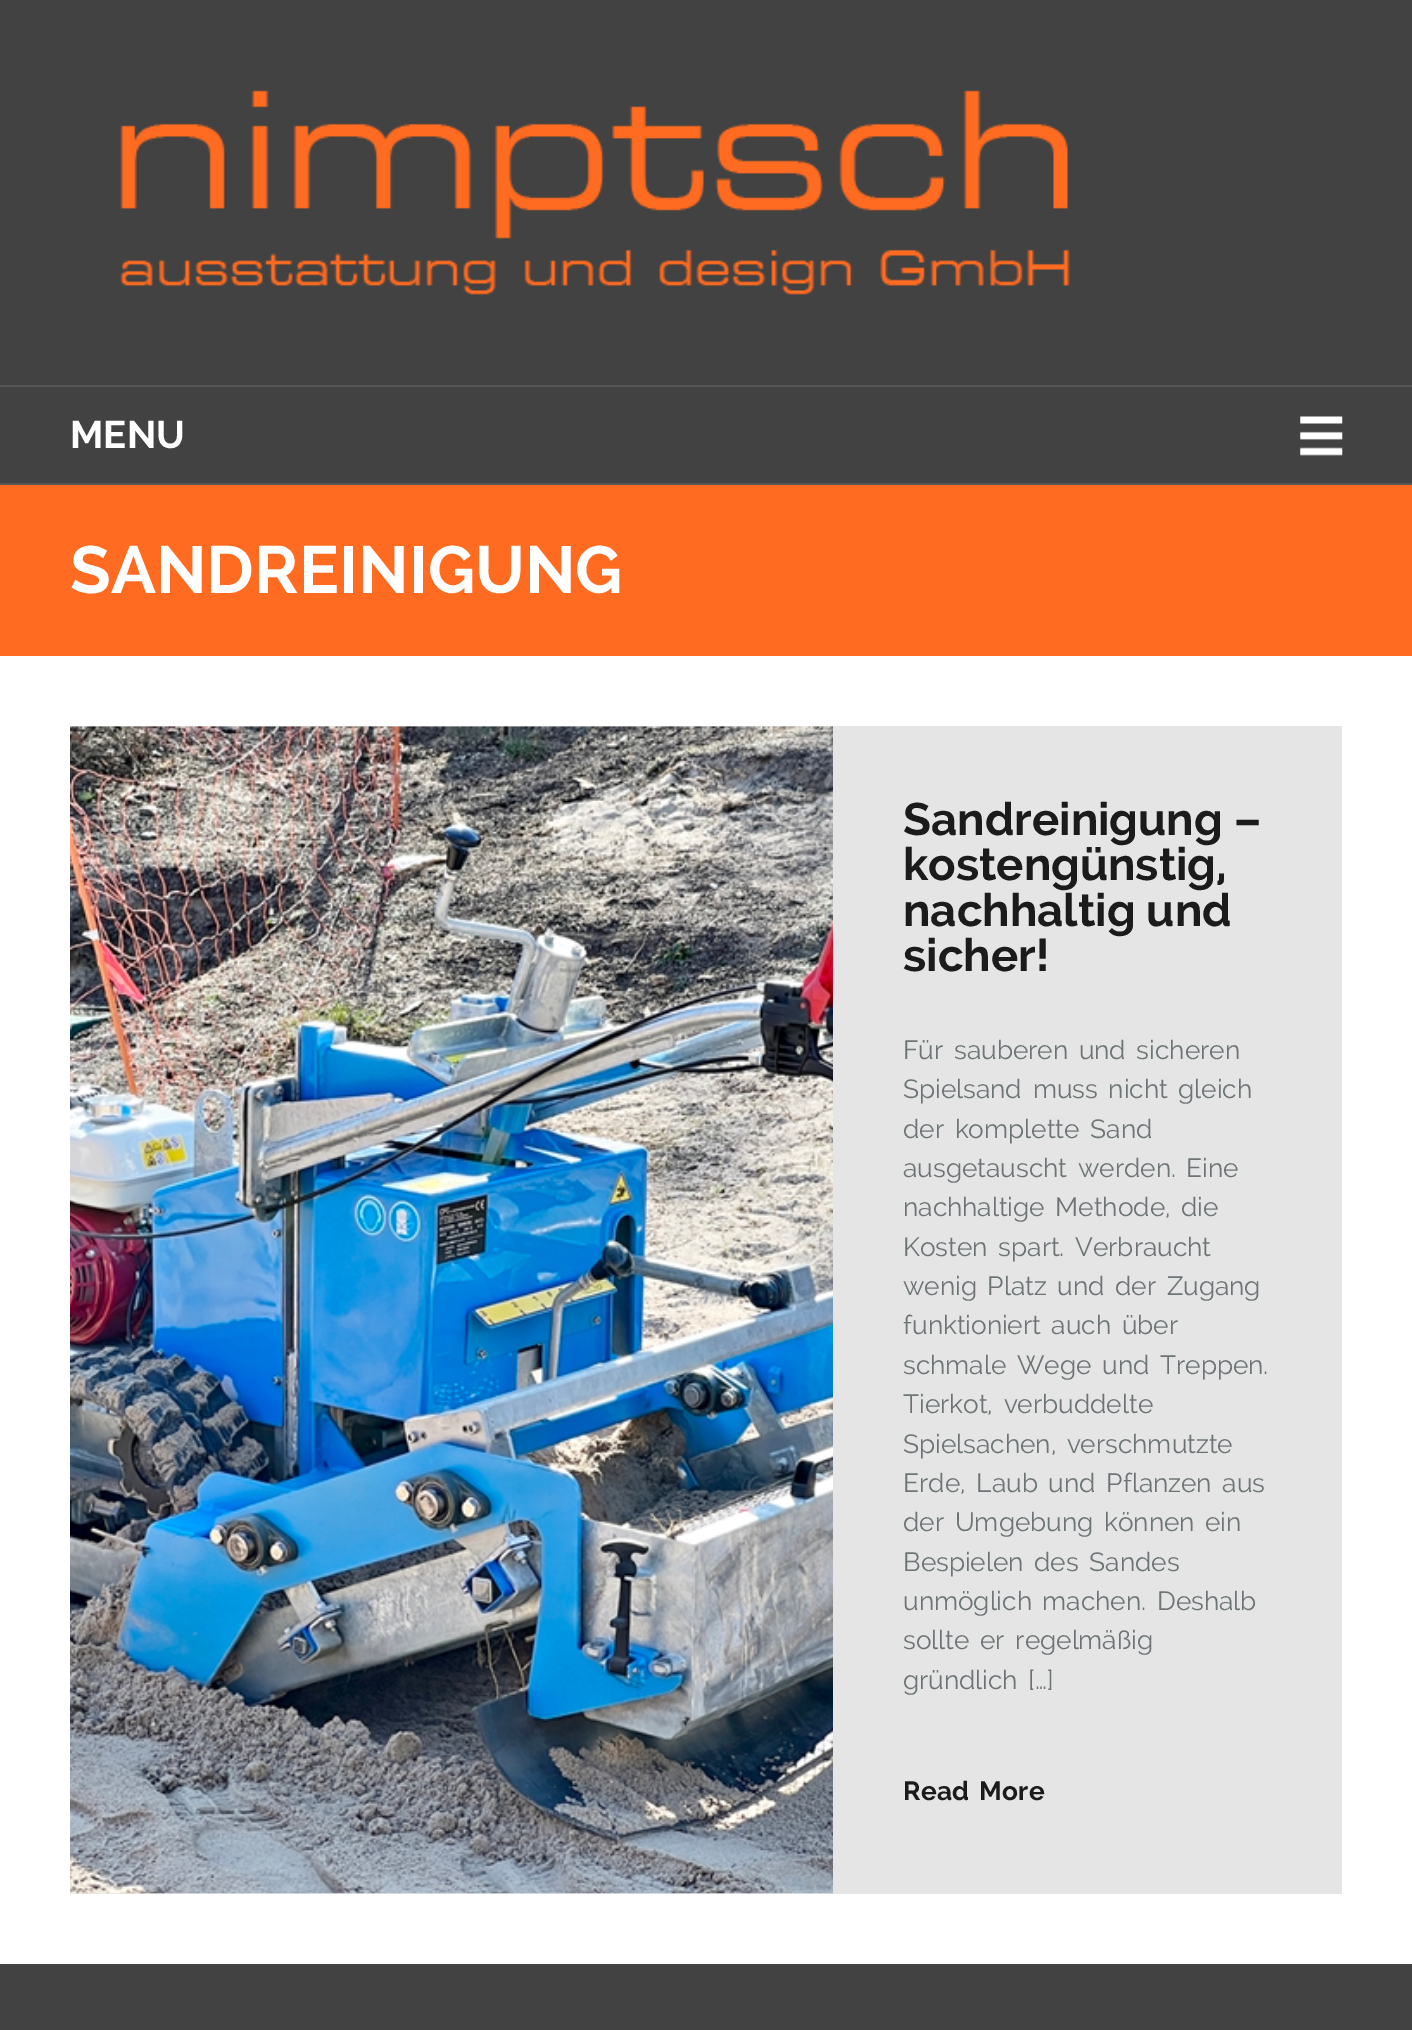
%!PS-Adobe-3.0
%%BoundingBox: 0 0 1412 2030
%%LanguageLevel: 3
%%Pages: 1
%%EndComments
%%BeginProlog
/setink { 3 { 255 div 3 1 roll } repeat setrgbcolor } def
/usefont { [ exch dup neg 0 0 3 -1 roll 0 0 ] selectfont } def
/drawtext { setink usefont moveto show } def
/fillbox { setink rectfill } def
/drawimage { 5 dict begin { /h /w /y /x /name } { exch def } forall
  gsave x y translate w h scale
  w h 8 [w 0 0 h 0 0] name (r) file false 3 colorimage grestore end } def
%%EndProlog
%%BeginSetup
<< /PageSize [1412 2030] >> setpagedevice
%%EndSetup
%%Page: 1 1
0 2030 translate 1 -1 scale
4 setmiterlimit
0 0 1412 2030 255 255 255 fillbox
0 0 1412 483 66 66 66 fillbox
(assets/img1.rgb) 120 90 950 205 drawimage
(assets/img2.rgb) 1300 416 43 40 drawimage
0 385 1412 2 85 85 85 fillbox
0 483 1412 2 85 85 85 fillbox
(MENU) 70 448 /Raleway-Bold 38.5 255 255 255 drawtext
0 485 1412 171 255 107 33 fillbox
(SANDREINIGUNG) 70 593 /Raleway-Bold 66.5 255 255 255 drawtext
70 726 1272 1168 229 229 229 fillbox
(assets/img3.rgb) 70 726 763 1168 drawimage
(Sandreinigung –) 903 835 /Raleway-Bold 45.5 27 27 27 drawtext
(kostengünstig,) 903 880 /Raleway-Bold 45.5 27 27 27 drawtext
(nachhaltig und) 903 926 /Raleway-Bold 45.5 27 27 27 drawtext
(sicher!) 903 971 /Raleway-Bold 45.5 27 27 27 drawtext
/Raleway-Regular 26.25 usefont
108 116 118 setink
903 1059 moveto 4 0 32 (Für sauberen und sicheren) widthshow
903 1098 moveto 4 0 32 (Spielsand muss nicht gleich) widthshow
903 1138 moveto 4 0 32 (der komplette Sand) widthshow
903 1177 moveto 4 0 32 (ausgetauscht werden. Eine) widthshow
903 1216 moveto 4 0 32 (nachhaltige Methode, die) widthshow
903 1256 moveto 4 0 32 (Kosten spart. Verbraucht) widthshow
903 1295 moveto 4 0 32 (wenig Platz und der Zugang) widthshow
903 1334 moveto 4 0 32 (funktioniert auch über) widthshow
903 1374 moveto 4 0 32 (schmale Wege und Treppen.) widthshow
903 1413 moveto 4 0 32 (Tierkot, verbuddelte) widthshow
903 1453 moveto 4 0 32 (Spielsachen, verschmutzte) widthshow
903 1492 moveto 4 0 32 (Erde, Laub und Pflanzen aus) widthshow
903 1531 moveto 4 0 32 (der Umgebung können ein) widthshow
903 1571 moveto 4 0 32 (Bespielen des Sandes) widthshow
903 1610 moveto 4 0 32 (unmöglich machen. Deshalb) widthshow
903 1649 moveto 4 0 32 (sollte er regelmäßig) widthshow
903 1689 moveto 4 0 32 (gründlich […]) widthshow
/Raleway-Bold 26.25 usefont
27 27 27 setink
903 1800 moveto 3 0 32 0.25 0 (Read More) awidthshow
0 1964 1412 66 66 66 66 fillbox
showpage
%%EOF
